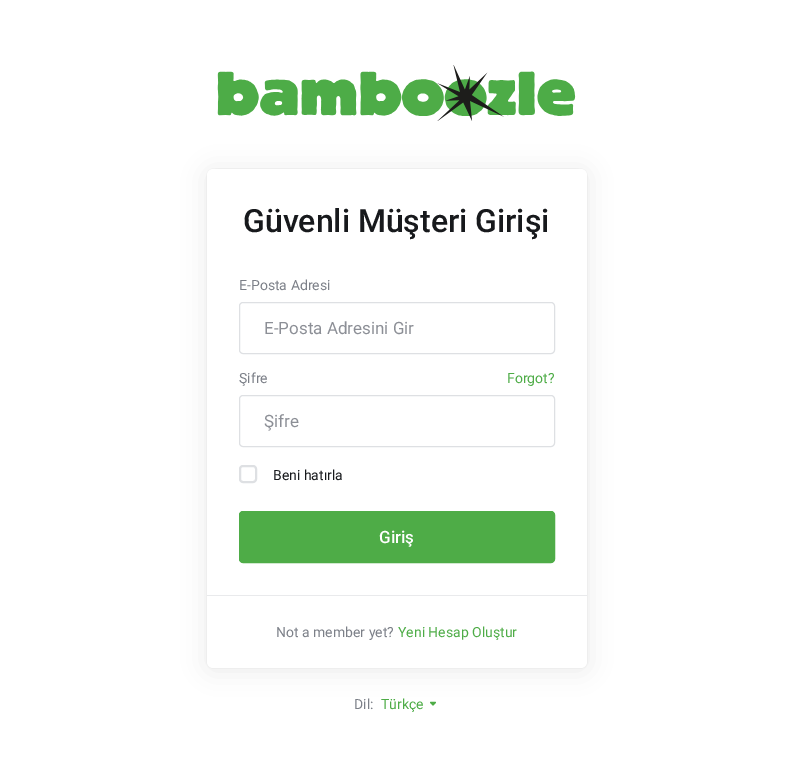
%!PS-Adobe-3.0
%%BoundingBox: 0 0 793 781
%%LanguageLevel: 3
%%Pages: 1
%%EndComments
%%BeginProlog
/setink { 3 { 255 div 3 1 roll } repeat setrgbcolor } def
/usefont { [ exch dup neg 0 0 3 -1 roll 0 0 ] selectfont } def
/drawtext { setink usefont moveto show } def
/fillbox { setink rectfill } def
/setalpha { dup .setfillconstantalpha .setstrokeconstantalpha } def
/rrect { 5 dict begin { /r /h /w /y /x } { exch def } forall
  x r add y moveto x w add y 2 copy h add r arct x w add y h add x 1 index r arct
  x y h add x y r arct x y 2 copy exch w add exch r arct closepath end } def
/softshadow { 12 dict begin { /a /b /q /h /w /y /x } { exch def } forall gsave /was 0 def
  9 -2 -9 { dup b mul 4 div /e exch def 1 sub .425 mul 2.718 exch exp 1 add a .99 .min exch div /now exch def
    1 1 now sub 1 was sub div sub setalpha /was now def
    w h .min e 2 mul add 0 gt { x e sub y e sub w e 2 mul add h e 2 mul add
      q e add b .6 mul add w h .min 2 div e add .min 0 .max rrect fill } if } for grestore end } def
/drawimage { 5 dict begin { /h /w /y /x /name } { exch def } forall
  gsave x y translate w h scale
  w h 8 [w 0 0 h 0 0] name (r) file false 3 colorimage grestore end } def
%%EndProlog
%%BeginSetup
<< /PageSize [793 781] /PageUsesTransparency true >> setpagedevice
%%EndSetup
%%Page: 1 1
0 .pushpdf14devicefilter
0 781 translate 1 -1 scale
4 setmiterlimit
0 0 793 781 255 255 255 fillbox
(assets/img1.rgb) 217 65 359 56 drawimage
0 0 0 setink
207 171 380 499 6 12 0.08 softshadow
207 169 380 499 6 0.5 0.1 softshadow
255 255 255 setink
207 169 380 499 6 rrect fill
(Güvenli Müşteri Girişi) 243 232 /Roboto-Medium 32 23 25 28 drawtext
(E-Posta Adresi) 239 290 /Roboto-Regular 14 124 128 136 drawtext
222 224 227 setink
239.5 302.5 315 51 3.5 rrect stroke
(E-Posta Adresini Gir) 264 334 /Roboto-Regular 17 140 143 150 drawtext
(Şifre) 239 383 /Roboto-Regular 14 124 128 136 drawtext
(Forgot?) 507 383 /Roboto-Regular 14 78 172 71 drawtext
222 224 227 setink
239.5 395.5 315 51 3.5 rrect stroke
(Şifre) 264 427 /Roboto-Regular 17 140 143 150 drawtext
222 224 227 setink
2 setlinewidth
240 466 16 16 3 rrect stroke
(Beni hatırla) 273 480 /Roboto-Regular 14 23 25 28 drawtext
78 172 71 setink
239.5 511.5 315 51 3.5 rrect gsave fill grestore
1 setlinewidth
stroke
(Giriş) 379 543 /Roboto-Medium 17 255 255 255 drawtext
207 595 380 1 233 234 236 fillbox
(Not a member yet?) 276 637 /Roboto-Regular 14 124 128 136 drawtext
(Yeni Hesap Oluştur) 398 637 /Roboto-Regular 14 78 172 71 drawtext
(Dil:) 354 709 /Roboto-Regular 14 124 128 136 drawtext
(Türkçe) 381 709 /Roboto-Regular 14 78 172 71 drawtext
(assets/img2.rgb) 430 701 6 5 drawimage
.poppdf14devicefilter showpage
%%EOF
